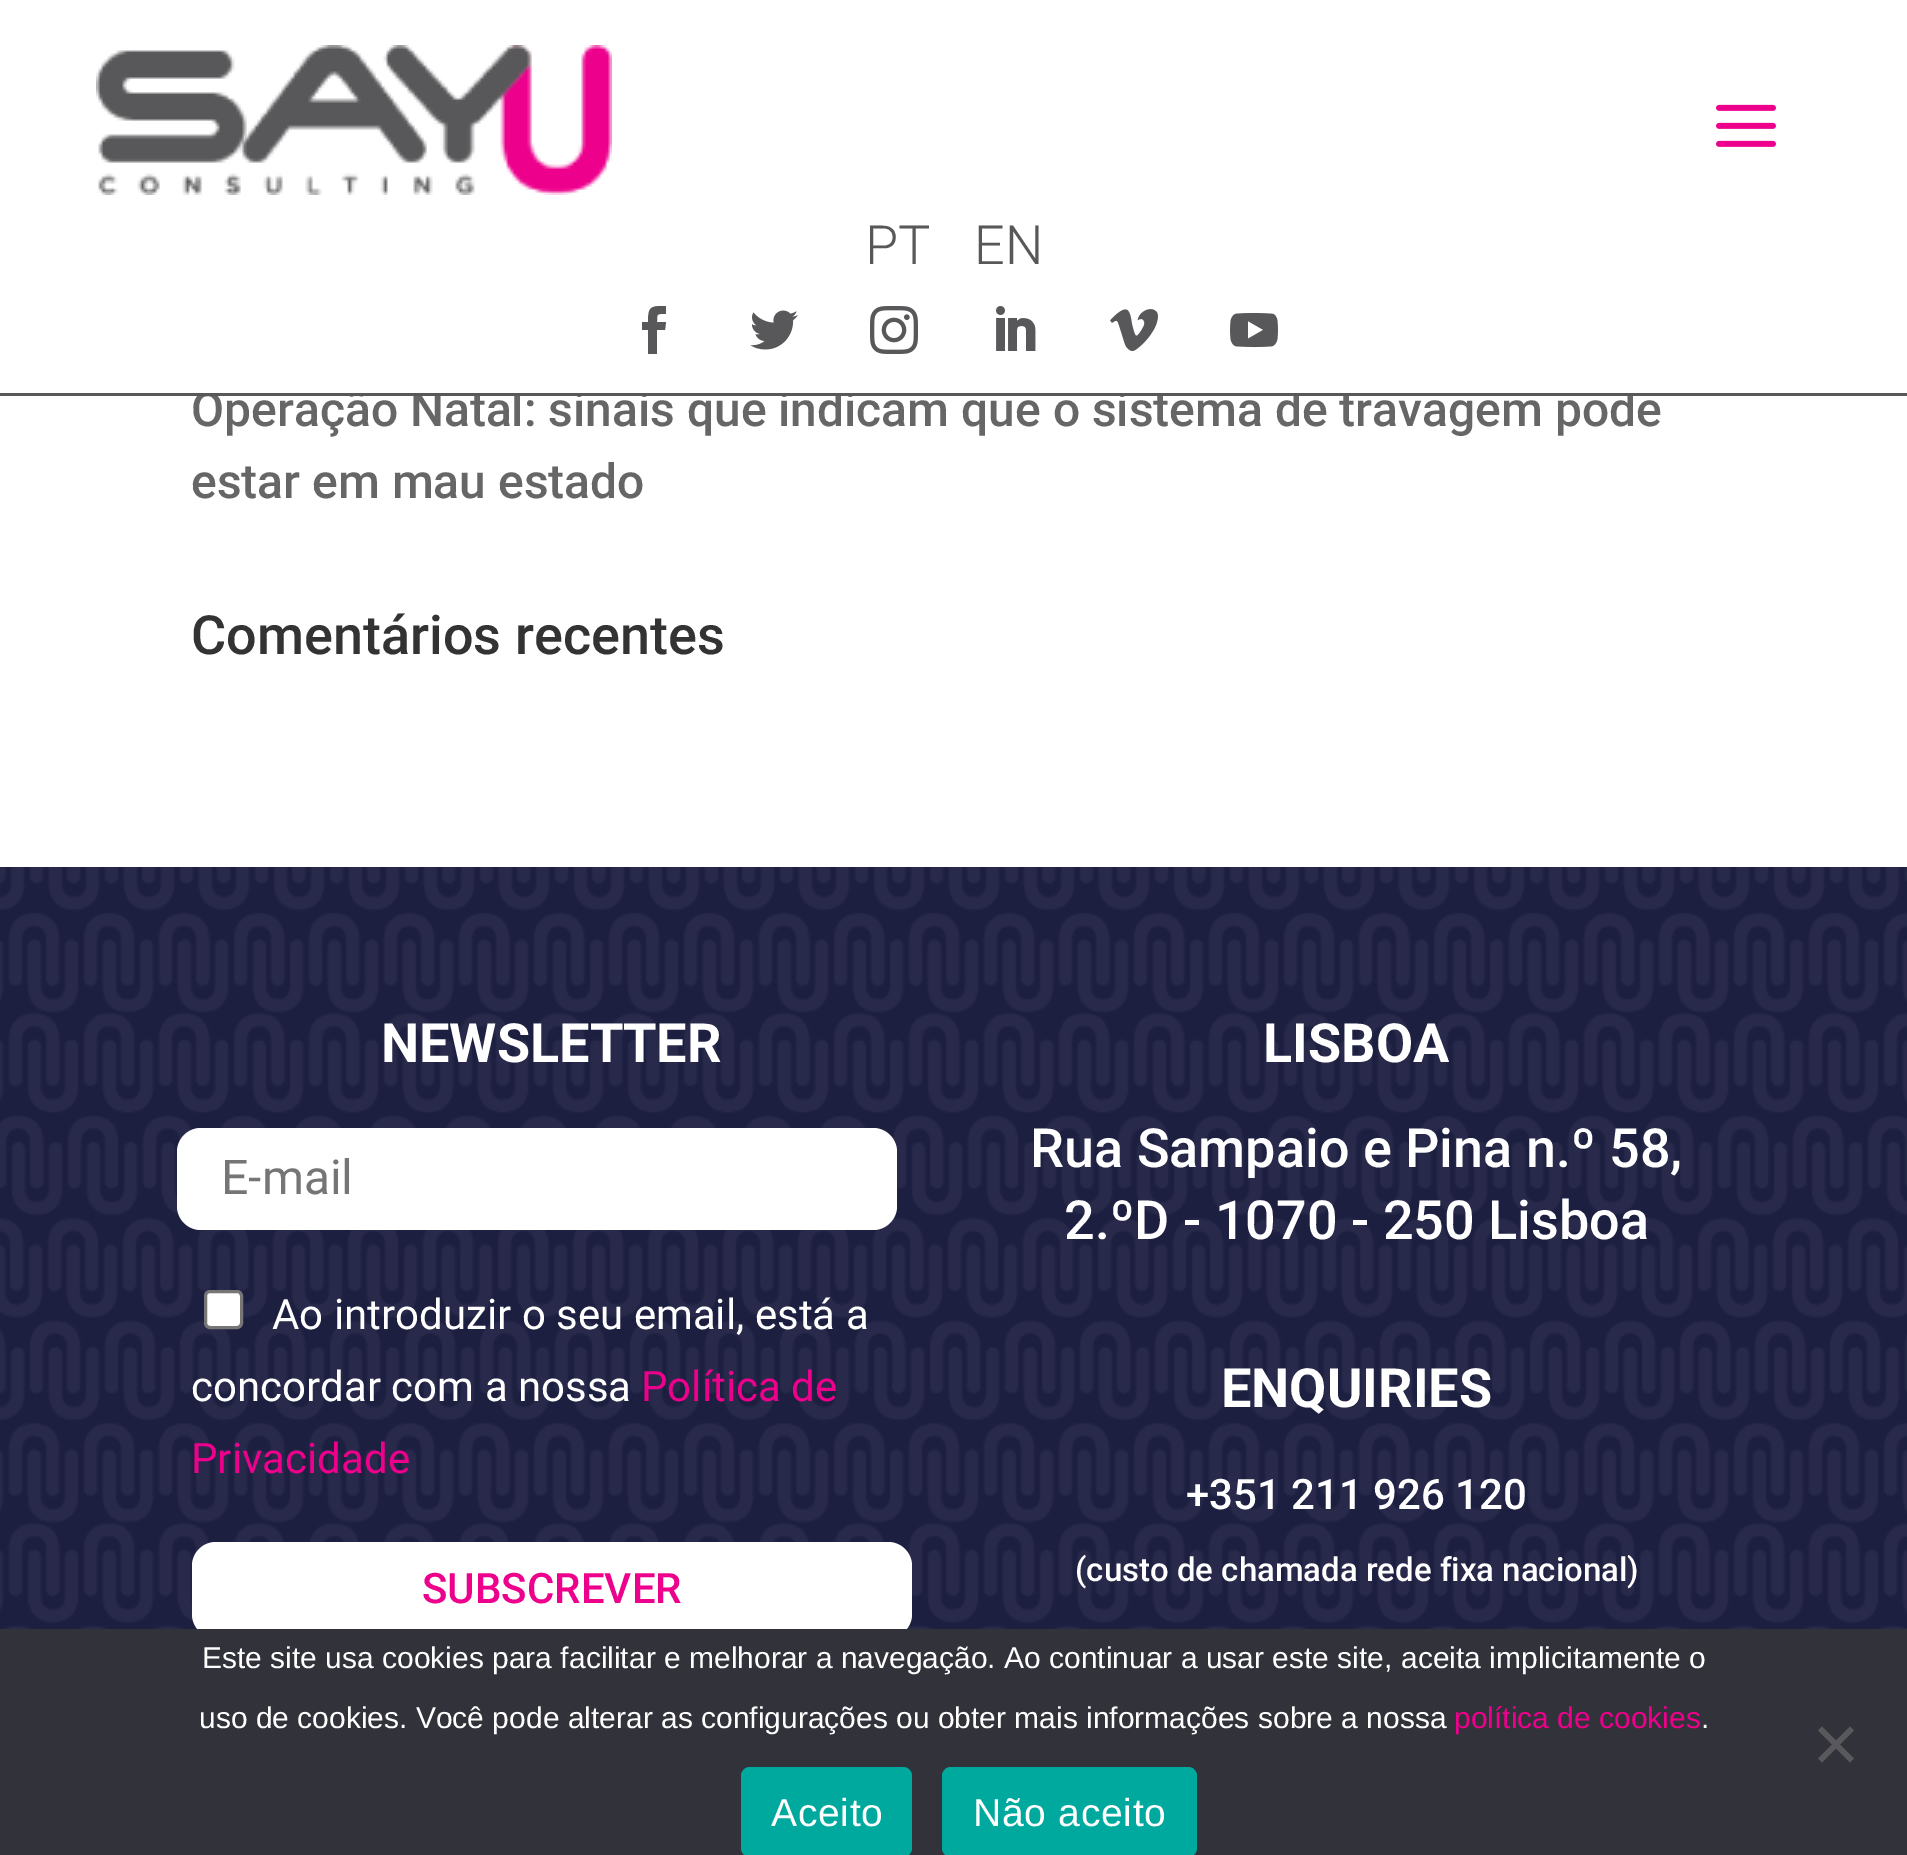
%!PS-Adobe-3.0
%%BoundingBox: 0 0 1907 1855
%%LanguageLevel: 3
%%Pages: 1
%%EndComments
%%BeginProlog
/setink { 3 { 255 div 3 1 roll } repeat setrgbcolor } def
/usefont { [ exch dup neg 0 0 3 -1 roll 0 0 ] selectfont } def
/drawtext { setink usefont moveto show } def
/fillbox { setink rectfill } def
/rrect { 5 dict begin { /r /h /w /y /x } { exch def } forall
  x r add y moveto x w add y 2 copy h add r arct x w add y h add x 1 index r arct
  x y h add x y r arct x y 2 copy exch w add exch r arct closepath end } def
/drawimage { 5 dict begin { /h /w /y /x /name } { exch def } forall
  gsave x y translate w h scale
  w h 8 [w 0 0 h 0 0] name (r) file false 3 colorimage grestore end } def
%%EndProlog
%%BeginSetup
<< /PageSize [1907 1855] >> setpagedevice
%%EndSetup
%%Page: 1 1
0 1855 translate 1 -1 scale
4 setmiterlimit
0 0 1907 1855 255 255 255 fillbox
(Operação Natal: sinais que indicam que o sistema de travagem pode) 191 426 /Roboto-Medium 48 102 102 102 drawtext
200 390 1433 3 255 255 255 fillbox
0 393 1907 3 88 88 90 fillbox
(assets/img1.rgb) 96 45 516 150 drawimage
(assets/img2.rgb) 1716 104 60 43 drawimage
(PT) 865 264 /Roboto-Light 54 88 88 90 drawtext
(EN) 974 264 /Roboto-Light 54 88 88 90 drawtext
648 354 moveto 657 354 lineto 657 330 lineto 665 330 lineto 666 322 lineto 657 322 lineto 657 313 657 314 666 314 curveto 666 306 lineto 651 306 648 306 648 322 curveto 642 322 lineto 642 330 lineto 648 330 lineto closepath fill
(assets/img3.rgb) 750 310 48 40 drawimage
(assets/img4.rgb) 870 306 48 48 drawimage
(assets/img5.rgb) 996 306 40 45 drawimage
(assets/img6.rgb) 1110 309 48 42 drawimage
(assets/img7.rgb) 1230 312 48 36 drawimage
(estar em mau estado) 191 498 /Roboto-Medium 48 102 102 102 drawtext
(Comentários recentes) 191 654 /Roboto-Medium 54 51 51 51 drawtext
0 867 1907 762 29 31 65 fillbox
(assets/img8.rgb) 0 867 1907 762 drawimage
(NEWSLETTER) 381 1062 /Roboto-Bold 54 255 255 255 drawtext
177 1128 720 102 24 rrect fill
(E-mail) 221 1194 /Roboto-Regular 48 117 117 117 drawtext
255 255 255 setink
205.5 1291.5 36 36 4.5 rrect gsave fill grestore
118 118 118 setink
3 setlinewidth
stroke
(Ao introduzir o seu email, está a) 272 1329 /Roboto-Regular 42 255 255 255 drawtext
(concordar com a nossa) 191 1401 /Roboto-Regular 42 255 255 255 drawtext
(Política de) 641 1401 /Roboto-Regular 42 236 0 140 drawtext
(Privacidade) 191 1473 /Roboto-Regular 42 236 0 140 drawtext
255 255 255 setink
192 1542 720 96 24 rrect fill
(SUBSCREVER) 422 1603 /Roboto-Medium 42 236 0 140 drawtext
(LISBOA) 1263 1062 /Roboto-Bold 54 255 255 255 drawtext
(Rua Sampaio e Pina n.º 58,) 1030 1167 /Roboto-Medium 54 255 255 255 drawtext
(2.ºD - 1070 - 250 Lisboa) 1064 1239 /Roboto-Medium 54 255 255 255 drawtext
(ENQUIRIES) 1221 1407 /Roboto-Bold 54 255 255 255 drawtext
(+351 211 926 120) 1186 1509 /Roboto-Medium 42 255 255 255 drawtext
(\(custo de chamada rede fixa nacional\)) 1075 1581 /Roboto-Medium 33 255 255 255 drawtext
0 1629 1907 226 50 50 58 fillbox
(Este site usa cookies para facilitar e melhorar a navegação. Ao continuar a usar este site, aceita implicitamente o) 202 1668 /LiberationSans-Regular 30 255 255 255 drawtext
(uso de cookies. Você pode alterar as configurações ou obter mais informações sobre a nossa) 199 1728 /LiberationSans-Regular 30 255 255 255 drawtext
(política de cookies) 1454 1728 /LiberationSans-Regular 30 236 0 140 drawtext
(.) 1701 1728 /LiberationSans-Regular 30 255 255 255 drawtext
89 89 93 setink
1850 1726.5 moveto 1854 1730.5 lineto 1822 1762.5 lineto 1818 1758.5 lineto closepath fill
1818 1730.5 moveto 1822 1726.5 lineto 1854 1758.5 lineto 1850 1762.5 lineto closepath fill
0 169 157 setink
741 1767 171 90 9 rrect fill
/LiberationSans-Regular 39 usefont
255 255 255 setink
771 1826 moveto 0.75 0 (Aceito) ashow
0 169 157 setink
942 1767 255 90 9 rrect fill
255 255 255 setink
973 1826 moveto 0.75 0 (Não aceito) ashow
showpage
%%EOF
